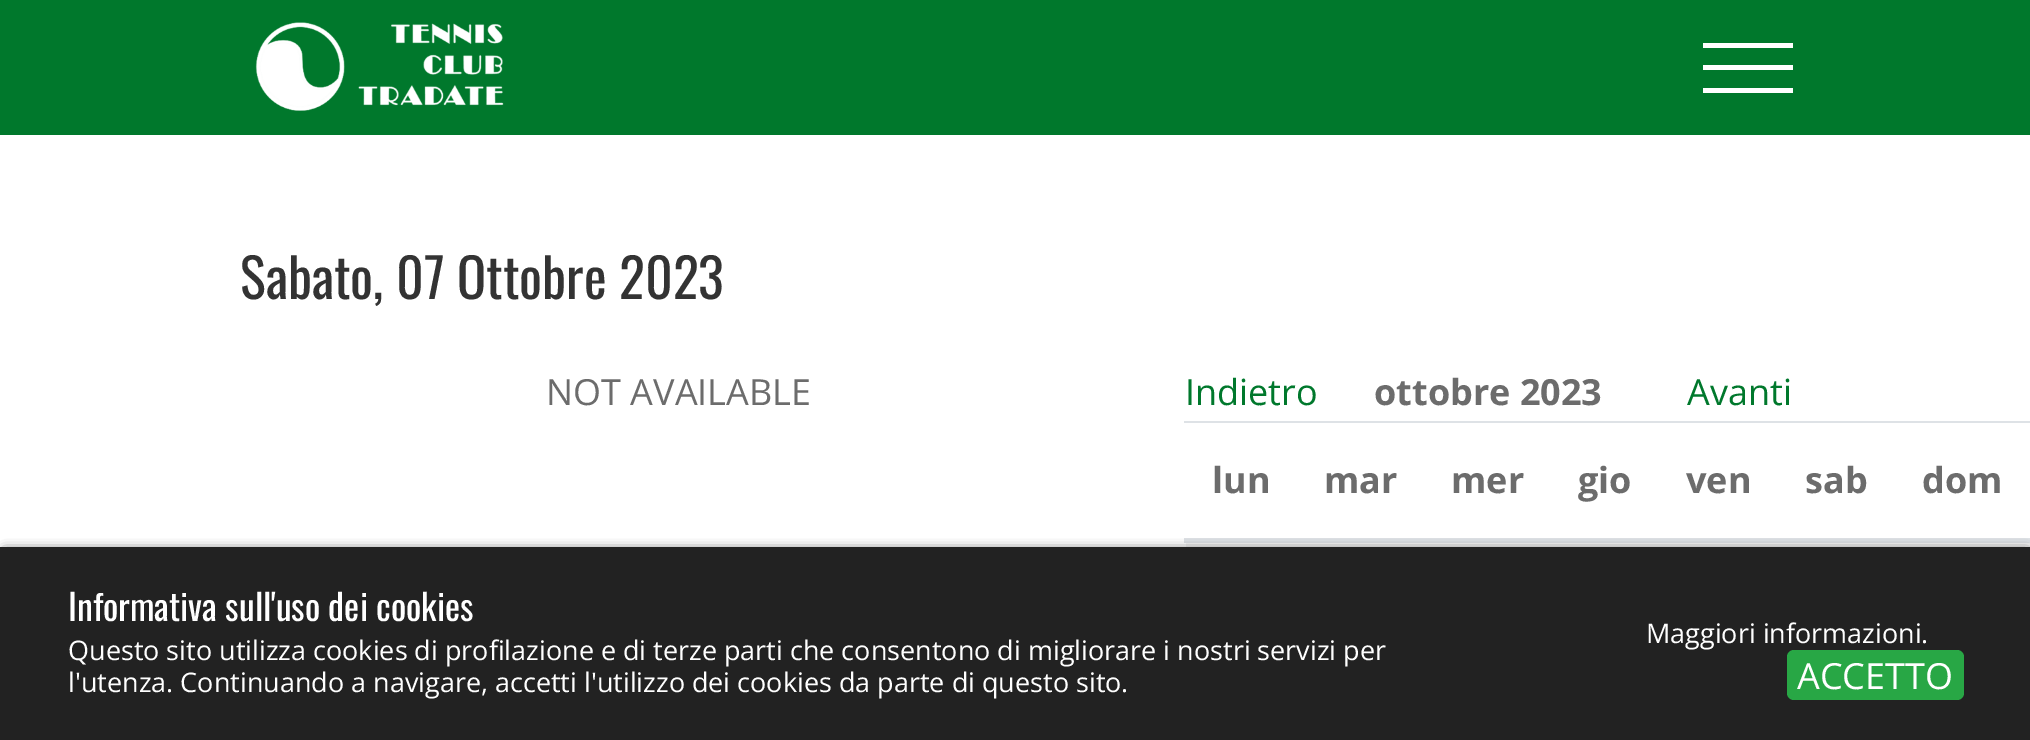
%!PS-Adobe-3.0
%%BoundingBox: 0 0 2030 740
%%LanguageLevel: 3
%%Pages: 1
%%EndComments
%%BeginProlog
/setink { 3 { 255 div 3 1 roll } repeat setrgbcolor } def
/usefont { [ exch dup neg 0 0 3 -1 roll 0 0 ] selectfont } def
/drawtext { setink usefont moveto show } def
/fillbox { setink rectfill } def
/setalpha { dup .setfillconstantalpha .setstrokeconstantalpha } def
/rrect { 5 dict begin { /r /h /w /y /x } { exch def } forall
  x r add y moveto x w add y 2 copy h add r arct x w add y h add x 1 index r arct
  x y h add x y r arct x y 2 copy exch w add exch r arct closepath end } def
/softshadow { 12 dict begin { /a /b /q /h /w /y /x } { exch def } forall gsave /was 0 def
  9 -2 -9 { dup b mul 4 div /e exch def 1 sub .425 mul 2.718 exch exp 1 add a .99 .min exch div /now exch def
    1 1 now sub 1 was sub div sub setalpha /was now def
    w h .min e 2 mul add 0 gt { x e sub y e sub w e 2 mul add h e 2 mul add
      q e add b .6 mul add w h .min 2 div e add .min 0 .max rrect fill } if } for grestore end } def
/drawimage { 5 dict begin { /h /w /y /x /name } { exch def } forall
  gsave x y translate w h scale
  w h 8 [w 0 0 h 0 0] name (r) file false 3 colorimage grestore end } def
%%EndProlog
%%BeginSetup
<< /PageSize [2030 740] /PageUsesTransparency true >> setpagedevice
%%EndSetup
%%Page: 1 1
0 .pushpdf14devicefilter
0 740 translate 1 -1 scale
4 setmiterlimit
0 0 2030 740 255 255 255 fillbox
0 0 2030 135 0 120 44 fillbox
(assets/img1.rgb) 255 22 249 89 drawimage
1703 43 90 5 255 255 255 fillbox
1703 65 90 5 255 255 255 fillbox
1703 88 90 5 255 255 255 fillbox
(Sabato, 07 Ottobre 2023) 240 299 /Oswald-Regular 54 51 51 51 drawtext
(NOT AVAILABLE) 546 405 /OpenSans-Regular 36 108 108 108 drawtext
(Indietro) 1185 405 /OpenSans-Regular 36 0 120 44 drawtext
(ottobre 2023) 1374 405 /OpenSans-Bold 36 108 108 108 drawtext
(Avanti) 1687 405 /OpenSans-Regular 36 0 120 44 drawtext
(lun) 1212 493 /OpenSans-Bold 36 108 108 108 drawtext
(mar) 1324 493 /OpenSans-Bold 36 108 108 108 drawtext
(mer) 1451 493 /OpenSans-Bold 36 108 108 108 drawtext
(gio) 1578 493 /OpenSans-Bold 36 108 108 108 drawtext
(ven) 1686 493 /OpenSans-Bold 36 108 108 108 drawtext
(sab) 1805 493 /OpenSans-Bold 36 108 108 108 drawtext
1184 421 846 2 222 226 230 fillbox
1184 538 846 5 222 226 230 fillbox
(dom) 1922 493 /OpenSans-Bold 36 108 108 108 drawtext
1186 543 844 4 243 243 243 fillbox
0 0 0 setink
5 551 2022 185 0 5.5 1 softshadow
0 547 2030 193 34 34 34 fillbox
(Informativa sull'uso dei cookies) 68 621 /Oswald-Regular 36 255 255 255 drawtext
(Questo sito utilizza cookies di profilazione e di terze parti che consentono di migliorare i nostri servizi per) 68 660 /OpenSans-Regular 27 255 255 255 drawtext
(l'utenza. Continuando a navigare, accetti l'utilizzo dei cookies da parte di questo sito.) 68 692 /OpenSans-Regular 27 255 255 255 drawtext
(Maggiori informazioni.) 1646 643 /OpenSans-Regular 27 255 255 255 drawtext
40 167 69 setink
1787 650 177 50 7 rrect fill
(ACCETTO) 1797 689 /OpenSans-Regular 36 255 255 255 drawtext
.poppdf14devicefilter showpage
%%EOF
